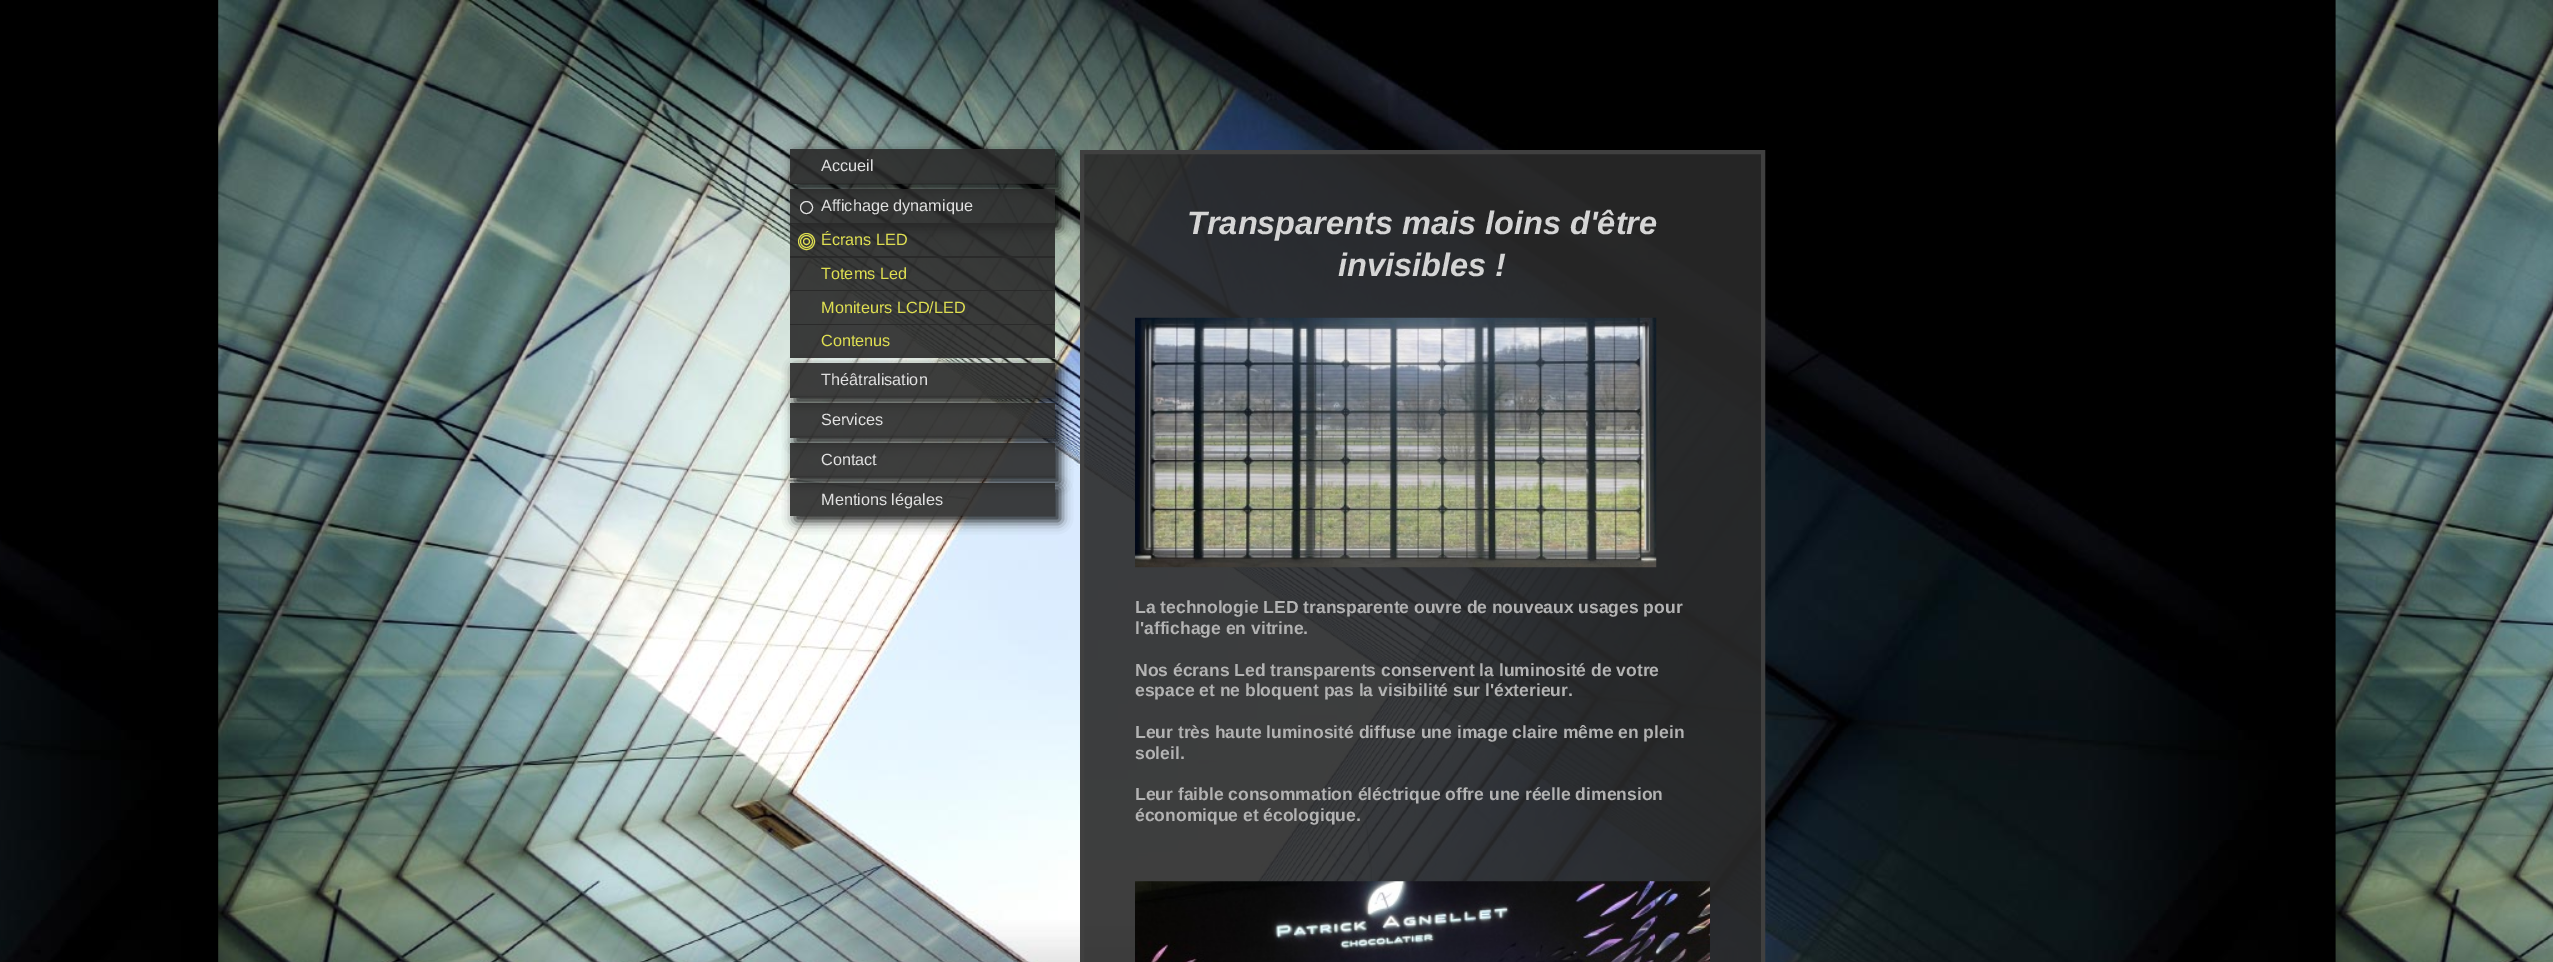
%!PS-Adobe-3.0
%%BoundingBox: 0 0 2553 962
%%LanguageLevel: 3
%%Pages: 1
%%EndComments
%%BeginProlog
/setink { 3 { 255 div 3 1 roll } repeat setrgbcolor } def
/usefont { [ exch dup neg 0 0 3 -1 roll 0 0 ] selectfont } def
/drawtext { setink usefont moveto show } def
/fillbox { setink rectfill } def
/setalpha { dup .setfillconstantalpha .setstrokeconstantalpha } def
/disc { newpath 0 360 arc closepath } def
/rrect { 5 dict begin { /r /h /w /y /x } { exch def } forall
  x r add y moveto x w add y 2 copy h add r arct x w add y h add x 1 index r arct
  x y h add x y r arct x y 2 copy exch w add exch r arct closepath end } def
/softshadow { 12 dict begin { /a /b /q /h /w /y /x } { exch def } forall gsave /was 0 def
  9 -2 -9 { dup b mul 4 div /e exch def 1 sub .425 mul 2.718 exch exp 1 add a .99 .min exch div /now exch def
    1 1 now sub 1 was sub div sub setalpha /was now def
    w h .min e 2 mul add 0 gt { x e sub y e sub w e 2 mul add h e 2 mul add
      q e add b .6 mul add w h .min 2 div e add .min 0 .max rrect fill } if } for grestore end } def
/drawimage { 5 dict begin { /h /w /y /x /name } { exch def } forall
  gsave x y translate w h scale
  w h 8 [w 0 0 h 0 0] name (r) file false 3 colorimage grestore end } def
%%EndProlog
%%BeginSetup
<< /PageSize [2553 962] /PageUsesTransparency true >> setpagedevice
%%EndSetup
%%Page: 1 1
0 .pushpdf14devicefilter
0 962 translate 1 -1 scale
4 setmiterlimit
0 0 2553 962 255 255 255 fillbox
(assets/img1.rgb) 0 0 2553 962 drawimage
gsave
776 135 moveto 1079 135 lineto 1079 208 lineto 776 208 lineto closepath 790 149 moveto 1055 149 lineto 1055 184 lineto 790 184 lineto closepath eoclip newpath
0 0 0 setink
795 154 265 35 0 6 0.9 softshadow
grestore
0.9 setalpha
790 149 265 35 41 41 41 fillbox
0.1 setalpha
790 183 265 1 0 0 0 fillbox
1 setalpha
(Accueil) 821 171 /LiberationSans-Regular 16.25 225 225 225 drawtext
gsave
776 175 moveto 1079 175 lineto 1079 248 lineto 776 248 lineto closepath 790 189 moveto 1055 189 lineto 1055 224 lineto 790 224 lineto closepath eoclip newpath
0 0 0 setink
795 194 265 35 0 6 0.9 softshadow
grestore
0.9 setalpha
790 189 265 35 41 41 41 fillbox
0.1 setalpha
790 223 265 1 0 0 0 fillbox
1 setalpha
225 225 225 setink
806.5 207.5 6 disc stroke
(Affichage dynamique) 821 211 /LiberationSans-Regular 16.25 225 225 225 drawtext
0.9 setalpha
790 223 265 35 41 41 41 fillbox
0.1 setalpha
790 256 265 1 0 0 0 fillbox
1 setalpha
223 223 81 setink
806.5 241.5 8 disc stroke
806.5 241.5 6 disc stroke
(Écrans LED) 821 245 /LiberationSans-Regular 16.25 223 223 81 drawtext
806.5 241.5 3 disc stroke
0.9 setalpha
790 256 265 35 41 41 41 fillbox
0.1 setalpha
790 290 265 1 0 0 0 fillbox
1 setalpha
(Totems Led) 821 279 /LiberationSans-Regular 16.25 223 223 81 drawtext
0.9 setalpha
790 290 265 35 41 41 41 fillbox
0.1 setalpha
790 324 265 1 0 0 0 fillbox
1 setalpha
(Moniteurs LCD/LED) 821 313 /LiberationSans-Regular 16.25 223 223 81 drawtext
0.9 setalpha
790 324 265 34 41 41 41 fillbox
1 setalpha
(Contenus) 821 346 /LiberationSans-Regular 16.25 223 223 81 drawtext
gsave
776 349 moveto 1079 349 lineto 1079 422 lineto 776 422 lineto closepath 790 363 moveto 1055 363 lineto 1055 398 lineto 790 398 lineto closepath eoclip newpath
0 0 0 setink
795 368 265 35 0 6 0.9 softshadow
grestore
0.9 setalpha
790 363 265 35 41 41 41 fillbox
0.1 setalpha
790 396 265 1 0 0 0 fillbox
1 setalpha
(Théâtralisation) 821 385 /LiberationSans-Regular 16.25 225 225 225 drawtext
gsave
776 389 moveto 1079 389 lineto 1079 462 lineto 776 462 lineto closepath 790 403 moveto 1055 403 lineto 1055 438 lineto 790 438 lineto closepath eoclip newpath
0 0 0 setink
795 408 265 35 0 6 0.9 softshadow
grestore
0.9 setalpha
790 403 265 35 41 41 41 fillbox
0.1 setalpha
790 436 265 1 0 0 0 fillbox
1 setalpha
(Services) 821 425 /LiberationSans-Regular 16.25 225 225 225 drawtext
gsave
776 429 moveto 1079 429 lineto 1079 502 lineto 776 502 lineto closepath 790 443 moveto 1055 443 lineto 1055 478 lineto 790 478 lineto closepath eoclip newpath
0 0 0 setink
795 448 265 35 0 6 0.9 softshadow
grestore
0.9 setalpha
790 443 265 35 41 41 41 fillbox
0.1 setalpha
790 476 265 1 0 0 0 fillbox
1 setalpha
(Contact) 821 465 /LiberationSans-Regular 16.25 225 225 225 drawtext
gsave
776 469 moveto 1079 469 lineto 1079 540 lineto 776 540 lineto closepath 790 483 moveto 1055 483 lineto 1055 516 lineto 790 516 lineto closepath eoclip newpath
0 0 0 setink
795 488 265 33 0 6 0.9 softshadow
grestore
0.9 setalpha
790 483 265 33 41 41 41 fillbox
1 setalpha
(Mentions légales) 821 505 /LiberationSans-Regular 16.25 225 225 225 drawtext
0.9 setalpha
41 41 41 setink
1082 152 moveto 1763 152 lineto 1763 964 lineto 1082 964 lineto closepath fill
1 setalpha
64 64 64 setink
4 setlinewidth
1082 152 moveto 1763 152 lineto 1763 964 lineto 1082 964 lineto closepath stroke
(Transparents mais loins d'être) 1187 234 /LiberationSans-BoldItalic 32.5 213 213 213 drawtext
(invisibles !) 1338 276 /LiberationSans-BoldItalic 32.5 213 213 213 drawtext
(assets/img2.rgb) 1135 317 522 251 drawimage
(La technologie LED transparente ouvre de nouveaux usages pour) 1135 613 /LiberationSans-Bold 17.5 179 179 179 drawtext
(l'affichage en vitrine.) 1135 634 /LiberationSans-Bold 17.5 179 179 179 drawtext
(Nos écrans Led transparents conservent la luminosité de votre) 1135 676 /LiberationSans-Bold 17.5 179 179 179 drawtext
(espace et ne bloquent pas la visibilité sur l'éxterieur.) 1135 696 /LiberationSans-Bold 17.5 179 179 179 drawtext
(Leur très haute luminosité diffuse une image claire même en plein) 1135 738 /LiberationSans-Bold 17.5 179 179 179 drawtext
(soleil.) 1135 759 /LiberationSans-Bold 17.5 179 179 179 drawtext
(Leur faible consommation éléctrique offre une réelle dimension) 1135 800 /LiberationSans-Bold 17.5 179 179 179 drawtext
(économique et écologique.) 1135 821 /LiberationSans-Bold 17.5 179 179 179 drawtext
(assets/img3.rgb) 1135 881 575 81 drawimage
.poppdf14devicefilter showpage
%%EOF
